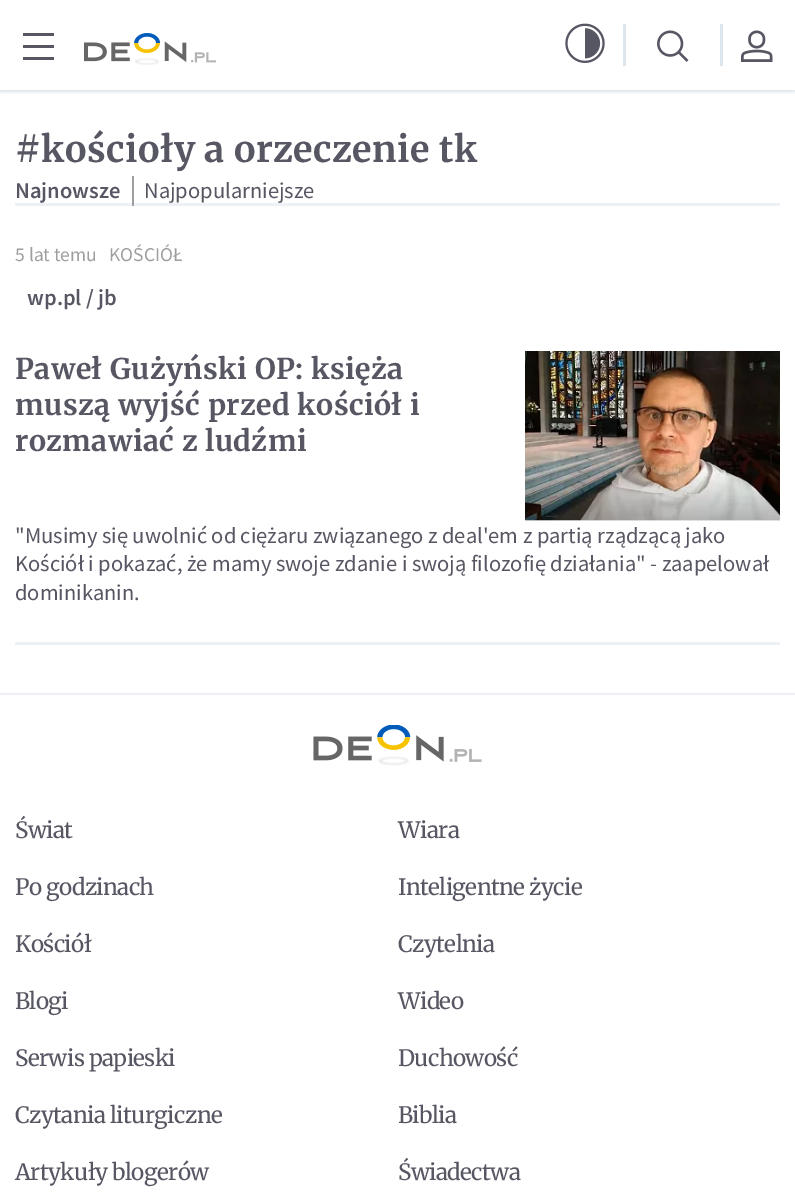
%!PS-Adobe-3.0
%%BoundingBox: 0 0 795 1204
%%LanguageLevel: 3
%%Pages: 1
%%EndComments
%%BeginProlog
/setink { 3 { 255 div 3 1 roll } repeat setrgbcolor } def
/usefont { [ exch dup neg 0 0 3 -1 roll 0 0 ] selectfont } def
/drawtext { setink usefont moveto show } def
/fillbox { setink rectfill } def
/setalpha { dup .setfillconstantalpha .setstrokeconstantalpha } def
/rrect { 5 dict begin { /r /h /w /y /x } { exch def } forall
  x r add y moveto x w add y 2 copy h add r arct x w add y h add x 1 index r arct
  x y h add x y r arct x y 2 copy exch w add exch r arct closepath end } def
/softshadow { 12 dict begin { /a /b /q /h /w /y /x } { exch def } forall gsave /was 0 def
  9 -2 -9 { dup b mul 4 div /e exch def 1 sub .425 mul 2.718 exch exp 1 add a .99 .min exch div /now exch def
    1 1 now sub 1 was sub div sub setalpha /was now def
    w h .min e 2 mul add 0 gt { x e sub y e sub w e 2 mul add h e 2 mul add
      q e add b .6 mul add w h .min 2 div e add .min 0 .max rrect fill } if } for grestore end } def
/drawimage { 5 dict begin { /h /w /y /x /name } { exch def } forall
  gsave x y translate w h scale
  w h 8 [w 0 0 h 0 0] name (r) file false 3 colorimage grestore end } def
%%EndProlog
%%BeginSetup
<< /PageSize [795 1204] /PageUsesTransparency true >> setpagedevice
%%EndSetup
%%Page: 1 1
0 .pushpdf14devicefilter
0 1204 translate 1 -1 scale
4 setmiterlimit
0 0 795 1204 255 255 255 fillbox
gsave
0 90 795 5 rectclip
219 227 235 setink
0 2 795 90 0 1.5 1 softshadow
grestore
23 57 31 3 87 87 100 fillbox
23 33 31 3 87 87 100 fillbox
23 45 31 3 87 87 100 fillbox
(assets/img1.rgb) 84 33 132 32 drawimage
(assets/img2.rgb) 565 23 40 40 drawimage
623 24 3 42 221 229 237 fillbox
(assets/img3.rgb) 657 30 32 32 drawimage
720 24 3 42 221 229 237 fillbox
(assets/img4.rgb) 741 30 32 32 drawimage
15 203 765 3 237 241 245 fillbox
/Merriweather-Bold 36 usefont
87 87 100 setink
15 162 moveto 0.45 0 (#kościoły a orzeczenie tk) ashow
(Najnowsze) 15 198 /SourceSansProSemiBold-SemiBold 22.5 87 87 100 drawtext
132 176 2 30 159 159 159 fillbox
(Najpopularniejsze) 144 198 /SourceSansPro-Regular 22.5 87 87 100 drawtext
(5 lat temu) 15 261 /SourceSansPro-Regular 19.5 159 159 159 drawtext
(KOŚCIÓŁ) 109 261 /SourceSansPro-Regular 19.5 159 159 159 drawtext
(wp.pl / jb) 27 305 /SourceSansProSemiBold-SemiBold 22.5 87 87 100 drawtext
/Merriweather-Bold 28.5 usefont
15 379 moveto 0.45 0 (Paweł Gużyński OP: księża) ashow
15 415 moveto 0.45 0 (muszą wyjść przed kościół i) ashow
15 451 moveto 0.45 0 (rozmawiać z ludźmi) ashow
525 520 255 1 239 239 239 fillbox
(assets/img5.rgb) 525 351 255 170 drawimage
15 642 765 3 237 241 245 fillbox
("Musimy się uwolnić od ciężaru związanego z deal'em z partią rządzącą jako) 15 543 /SourceSansPro-Regular 22.5 87 87 100 drawtext
(Kościół i pokazać, że mamy swoje zdanie i swoją filozofię działania" - zaapelował) 15 571 /SourceSansPro-Regular 22.5 87 87 100 drawtext
(dominikanin.) 15 600 /SourceSansPro-Regular 22.5 87 87 100 drawtext
0 693 795 2 237 241 245 fillbox
(assets/img6.rgb) 313 725 169 41 drawimage
/Merriweather-Regular 22.5 usefont
87 87 100 setink
15 838 moveto -0.6 0 (Świat) ashow
398 838 moveto -0.6 0 (Wiara) ashow
15 895 moveto -0.6 0 (Po godzinach) ashow
398 895 moveto -0.6 0 (Inteligentne życie) ashow
15 952 moveto -0.6 0 (Kościół) ashow
398 952 moveto -0.6 0 (Czytelnia) ashow
15 1009 moveto -0.6 0 (Blogi) ashow
398 1009 moveto -0.6 0 (Wideo) ashow
15 1066 moveto -0.6 0 (Serwis papieski) ashow
398 1066 moveto -0.6 0 (Duchowość) ashow
15 1123 moveto -0.6 0 (Czytania liturgiczne) ashow
398 1123 moveto -0.6 0 (Biblia) ashow
15 1180 moveto -0.6 0 (Artykuły blogerów) ashow
398 1180 moveto -0.6 0 (Świadectwa) ashow
.poppdf14devicefilter showpage
%%EOF
